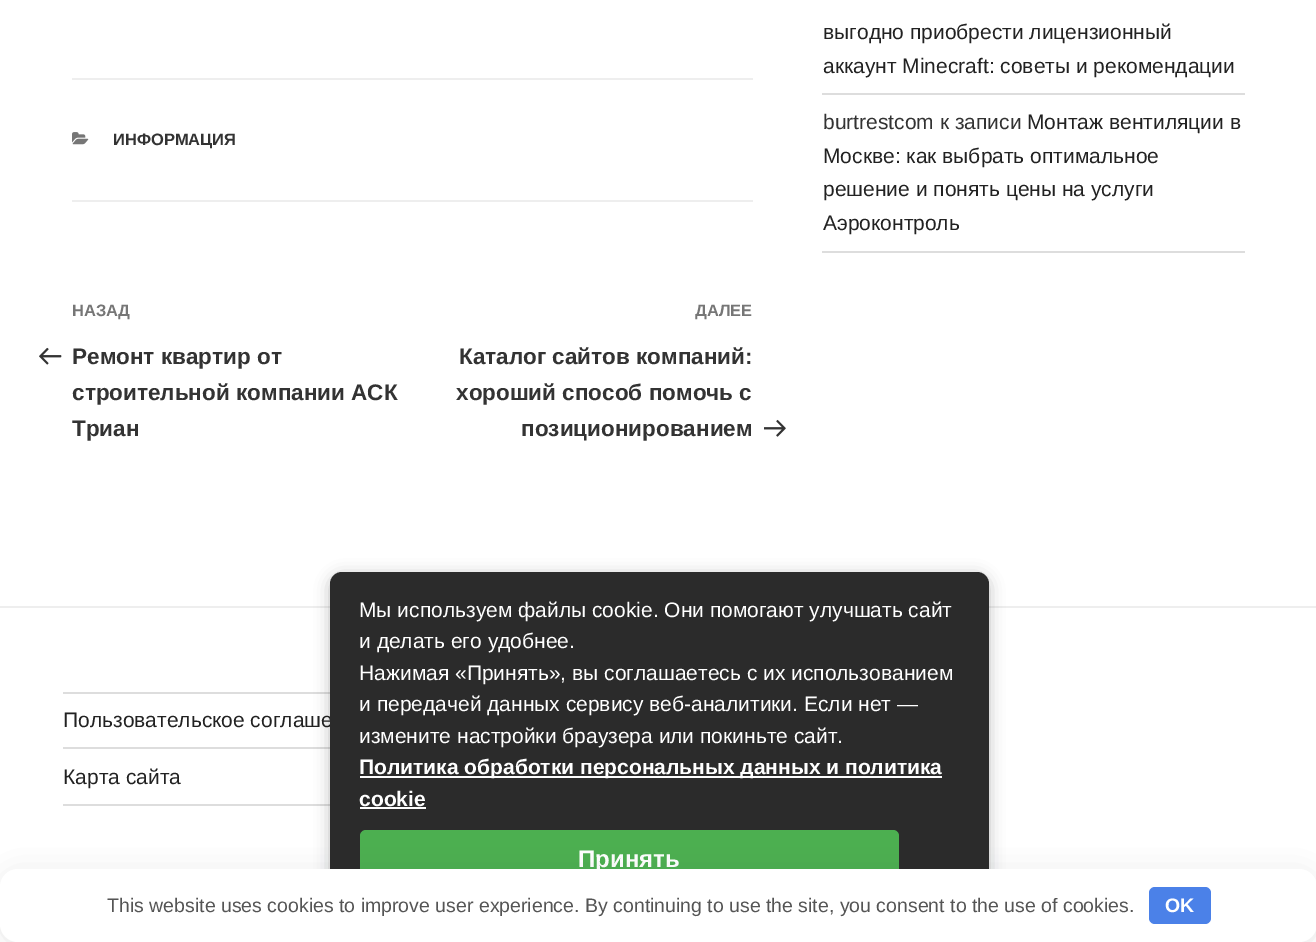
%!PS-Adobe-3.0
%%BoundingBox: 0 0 1316 942
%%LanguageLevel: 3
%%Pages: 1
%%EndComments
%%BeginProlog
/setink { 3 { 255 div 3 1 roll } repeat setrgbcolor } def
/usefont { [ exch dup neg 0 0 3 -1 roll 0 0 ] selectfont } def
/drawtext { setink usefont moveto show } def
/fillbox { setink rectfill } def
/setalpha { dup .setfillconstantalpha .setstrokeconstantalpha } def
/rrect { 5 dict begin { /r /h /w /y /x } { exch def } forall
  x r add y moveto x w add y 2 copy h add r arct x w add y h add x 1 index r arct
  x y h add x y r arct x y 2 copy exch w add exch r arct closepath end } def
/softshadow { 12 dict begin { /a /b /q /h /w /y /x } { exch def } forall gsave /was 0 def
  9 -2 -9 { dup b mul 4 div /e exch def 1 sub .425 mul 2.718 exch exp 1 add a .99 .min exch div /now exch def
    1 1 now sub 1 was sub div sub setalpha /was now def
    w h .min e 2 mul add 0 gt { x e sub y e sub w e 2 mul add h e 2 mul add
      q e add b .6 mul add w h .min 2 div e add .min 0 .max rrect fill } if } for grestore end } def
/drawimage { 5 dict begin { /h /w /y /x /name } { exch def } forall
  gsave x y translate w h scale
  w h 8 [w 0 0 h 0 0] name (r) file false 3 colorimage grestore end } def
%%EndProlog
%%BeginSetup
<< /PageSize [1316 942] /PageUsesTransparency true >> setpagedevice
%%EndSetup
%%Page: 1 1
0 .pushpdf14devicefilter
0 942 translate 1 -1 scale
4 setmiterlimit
0 0 1316 942 255 255 255 fillbox
72 78 681 2 238 238 238 fillbox
72 200 681 2 238 238 238 fillbox
(assets/img1.rgb) 72 132 17 13 drawimage
(ИНФОРМАЦИЯ) 113 145 /LiberationSans-Bold 16.5 51 51 51 drawtext
(НАЗАД) 72 316 /LiberationSans-Bold 16.5 118 118 118 drawtext
(assets/img2.rgb) 39 347 23 18 drawimage
(Ремонт квартир от) 72 364 /LiberationSans-Bold 22.5 51 51 51 drawtext
(строительной компании АСК) 72 400 /LiberationSans-Bold 22.5 51 51 51 drawtext
(Триан) 72 436 /LiberationSans-Bold 22.5 51 51 51 drawtext
(ДАЛЕЕ) 695 316 /LiberationSans-Bold 16.5 118 118 118 drawtext
(Каталог сайтов компаний:) 459 364 /LiberationSans-Bold 22.5 51 51 51 drawtext
(хороший способ помочь с) 456 400 /LiberationSans-Bold 22.5 51 51 51 drawtext
(позиционированием) 521 436 /LiberationSans-Bold 22.5 51 51 51 drawtext
(assets/img3.rgb) 764 419 22 18 drawimage
822 93 423 2 221 221 221 fillbox
(выгодно приобрести лицензионный) 823 39 /LiberationSans-Regular 21 34 34 34 drawtext
(аккаунт Minecraft: советы и рекомендации) 823 73 /LiberationSans-Regular 21 34 34 34 drawtext
822 251 423 2 221 221 221 fillbox
(burtrestcom к записи) 823 129 /LiberationSans-Regular 21 51 51 51 drawtext
(Монтаж вентиляции в) 1027 129 /LiberationSans-Regular 21 34 34 34 drawtext
(Москве: как выбрать оптимальное) 823 163 /LiberationSans-Regular 21 34 34 34 drawtext
(решение и понять цены на услуги) 823 196 /LiberationSans-Regular 21 34 34 34 drawtext
(Аэроконтроль) 823 230 /LiberationSans-Regular 21 34 34 34 drawtext
0 606 1316 2 238 238 238 fillbox
63 692 267 2 221 221 221 fillbox
63 747 267 2 221 221 221 fillbox
(Пользовательское соглаше) 63 727 /LiberationSans-Regular 21 34 34 34 drawtext
63 804 267 2 221 221 221 fillbox
(Карта сайта) 63 784 /LiberationSans-Regular 21 34 34 34 drawtext
0 0 0 setink
330 575 659 340 12 7.5 0.25 softshadow
43 43 43 setink
330 572 659 340 12 rrect fill
(Мы используем файлы cookie. Они помогают улучшать сайт) 359 617 /LiberationSans-Regular 21 255 255 255 drawtext
(и делать его удобнее.) 359 648 /LiberationSans-Regular 21 255 255 255 drawtext
(Нажимая «Принять», вы соглашаетесь с их использованием) 359 680 /LiberationSans-Regular 21 255 255 255 drawtext
(и передачей данных сервису веб-аналитики. Если нет —) 359 711 /LiberationSans-Regular 21 255 255 255 drawtext
(измените настройки браузера или покиньте сайт.) 359 743 /LiberationSans-Regular 21 255 255 255 drawtext
360 776 582 2 254 254 254 fillbox
(Политика обработки персональных данных и политика) 359 774 /LiberationSans-Bold 21 255 255 255 drawtext
(cookie) 359 806 /LiberationSans-Bold 21 255 255 255 drawtext
360 807 66 2 254 254 254 fillbox
76 175 80 setink
360 830 539 60 6 rrect fill
(Принять) 578 867 /LiberationSans-Bold 24 255 255 255 drawtext
41 44 56 setink
8 881 1302 58 11 15 0.2 softshadow
255 255 255 setink
0 869 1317 73 18 rrect fill
(This website uses cookies to improve user experience. By continuing to use the site, you consent to the use of cookies.) 107 912 /LiberationSans-Regular 19.5 85 85 85 drawtext
75 129 232 setink
1149 887 62 37 6 rrect fill
(OK) 1165 912 /LiberationSans-Bold 19.5 255 255 255 drawtext
.poppdf14devicefilter showpage
%%EOF
